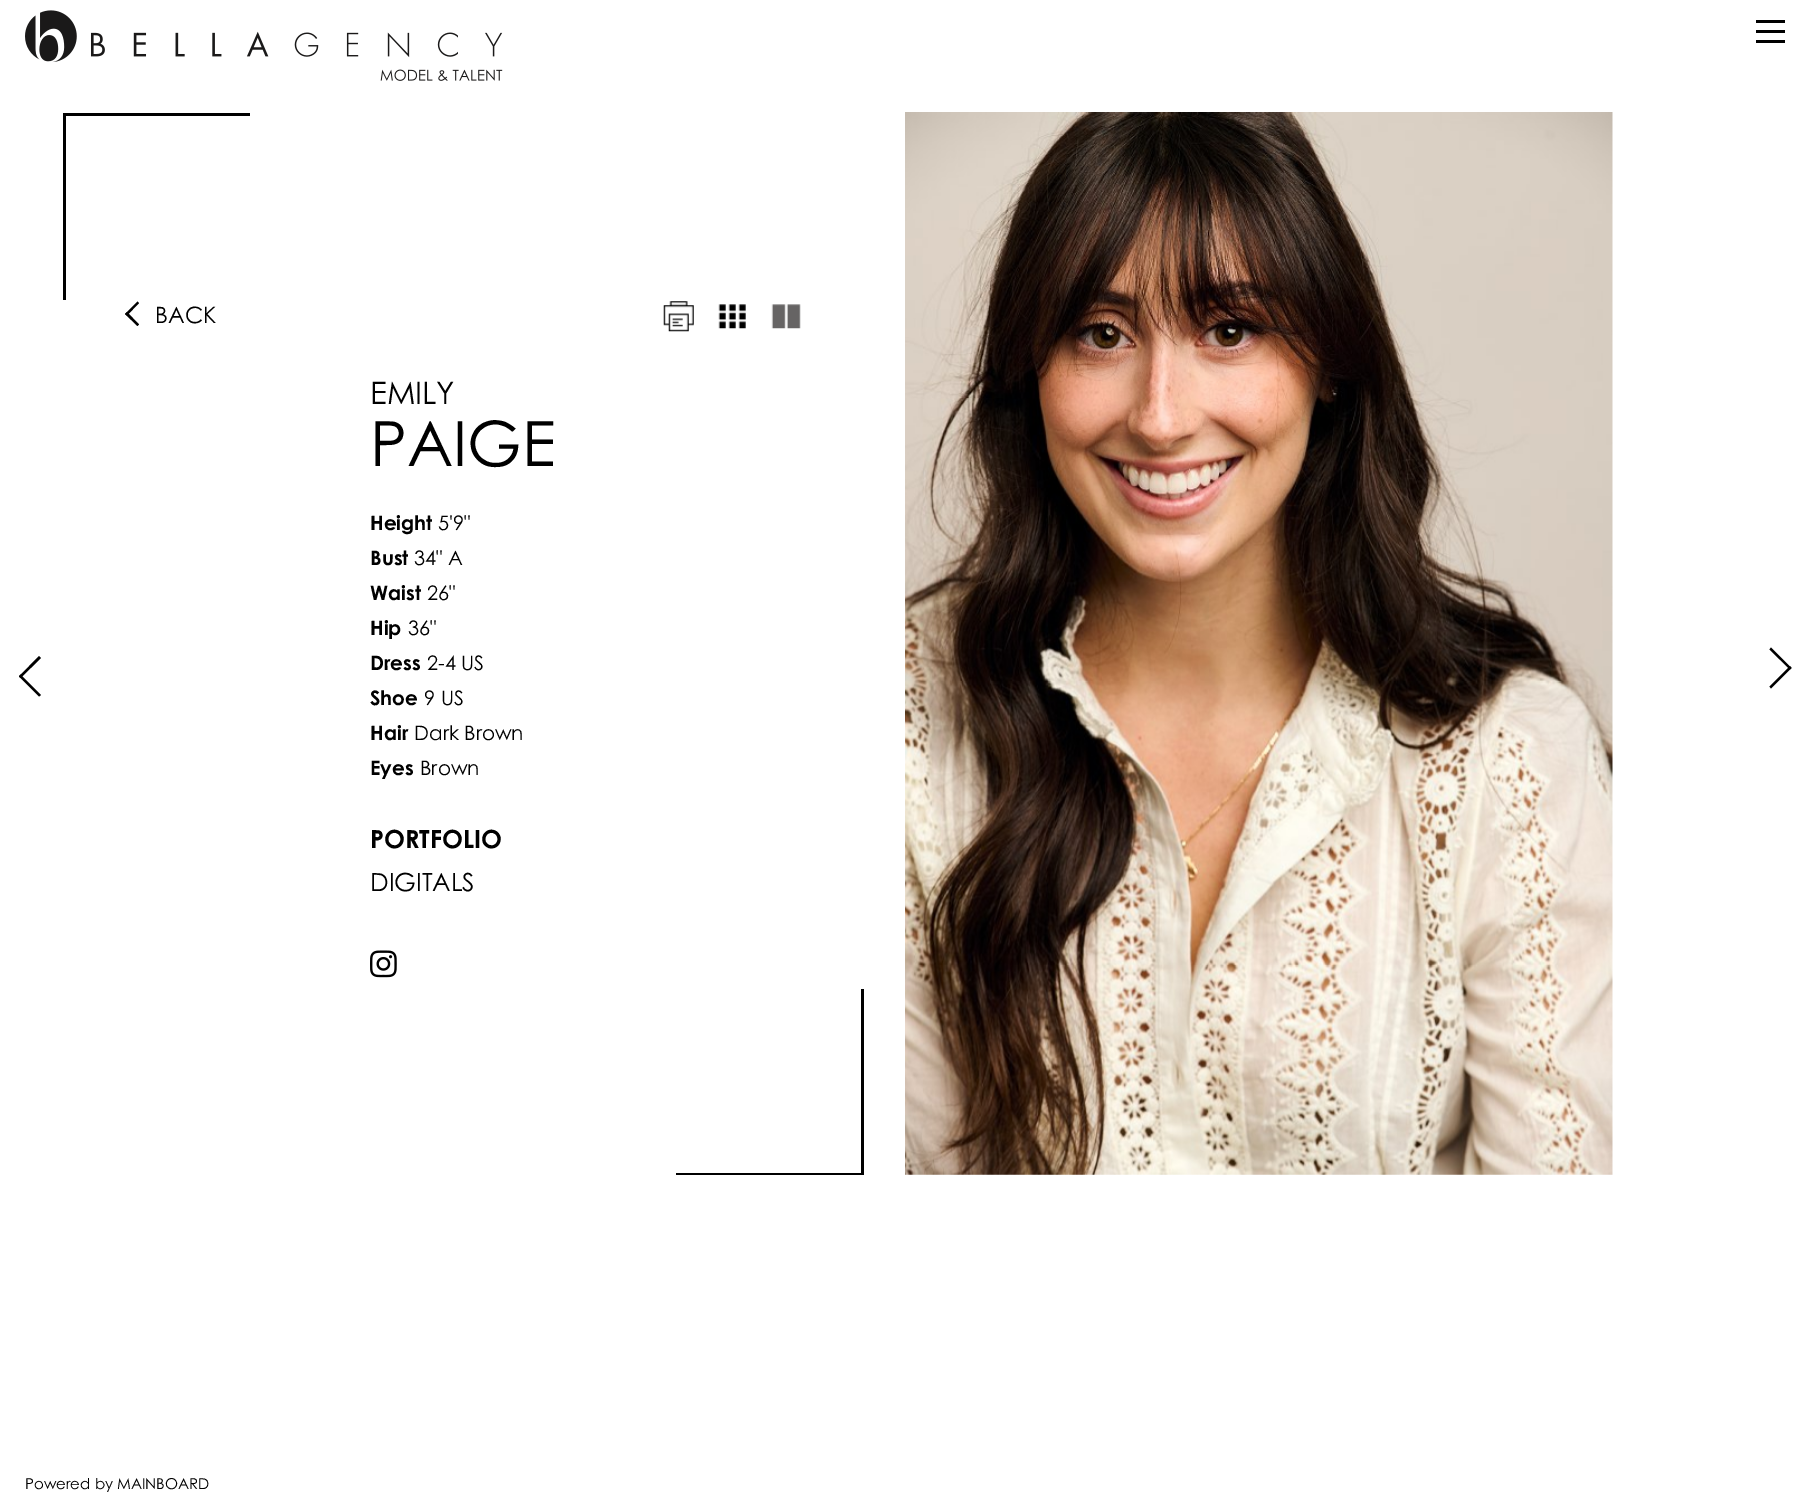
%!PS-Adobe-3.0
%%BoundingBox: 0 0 1810 1502
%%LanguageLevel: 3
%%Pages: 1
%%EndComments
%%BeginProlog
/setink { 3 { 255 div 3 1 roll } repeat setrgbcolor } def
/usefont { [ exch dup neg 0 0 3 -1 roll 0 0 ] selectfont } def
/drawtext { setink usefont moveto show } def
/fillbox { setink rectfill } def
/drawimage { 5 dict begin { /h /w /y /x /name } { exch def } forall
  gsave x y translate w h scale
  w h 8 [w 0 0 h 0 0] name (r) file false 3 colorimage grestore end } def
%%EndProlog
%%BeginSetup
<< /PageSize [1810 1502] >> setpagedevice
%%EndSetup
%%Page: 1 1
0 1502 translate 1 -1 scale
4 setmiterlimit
0 0 1810 1502 255 255 255 fillbox
(assets/img1.rgb) 25 10 478 71 drawimage
1756 20 29 3 0 0 0 fillbox
1756 30 29 3 0 0 0 fillbox
1756 40 29 3 0 0 0 fillbox
20.5 674.5 moveto 41 695 lineto 39 696.5 lineto 19 676.5 lineto closepath fill
39 656 moveto 41 658 lineto 20.5 678 lineto 19 676.5 lineto closepath fill
63 113 187 3 0 0 0 fillbox
63 113 3 187 0 0 0 fillbox
676 1173 188 2 0 0 0 fillbox
861 989 3 186 0 0 0 fillbox
127 312 moveto 139 324.5 lineto 137.5 326 lineto 125 314 lineto closepath fill
137.5 301.5 moveto 139 303 lineto 127 315.5 lineto 125 314 lineto closepath fill
(BACK) 155 323 /CenturyGothic-Regular 22.5 0 0 0 drawtext
(assets/img2.rgb) 663 301 31 31 drawimage
(assets/img3.rgb) 718 304 28 25 drawimage
(assets/img4.rgb) 771 304 30 25 drawimage
(EMILY) 370 404 /CenturyGothic-Regular 31 0 0 0 drawtext
(PAIGE) 370 466 /CenturyGothic-Regular 62.5 0 0 0 drawtext
(Height) 370 530 /CenturyGothic-Bold 20 0 0 0 drawtext
(5'9") 438 530 /CenturyGothic-Regular 20 0 0 0 drawtext
(Bust) 370 565 /CenturyGothic-Bold 20 0 0 0 drawtext
(34" A) 414 565 /CenturyGothic-Regular 20 0 0 0 drawtext
(Waist) 370 600 /CenturyGothic-Bold 20 0 0 0 drawtext
(26") 427 600 /CenturyGothic-Regular 20 0 0 0 drawtext
(Hip) 370 635 /CenturyGothic-Bold 20 0 0 0 drawtext
(36") 408 635 /CenturyGothic-Regular 20 0 0 0 drawtext
(Dress) 370 670 /CenturyGothic-Bold 20 0 0 0 drawtext
(2-4 US) 427 670 /CenturyGothic-Regular 20 0 0 0 drawtext
(Shoe) 370 705 /CenturyGothic-Bold 20 0 0 0 drawtext
(9 US) 424 705 /CenturyGothic-Regular 20 0 0 0 drawtext
(Hair) 370 740 /CenturyGothic-Bold 20 0 0 0 drawtext
(Dark Brown) 414 740 /CenturyGothic-Regular 20 0 0 0 drawtext
(Eyes) 370 775 /CenturyGothic-Bold 20 0 0 0 drawtext
(Brown) 420 775 /CenturyGothic-Regular 20 0 0 0 drawtext
(PORTFOLIO) 370 848 /CenturyGothic-Bold 25 0 0 0 drawtext
(DIGITALS) 370 891 /CenturyGothic-Regular 25 0 0 0 drawtext
(assets/img5.rgb) 370 950 27 28 drawimage
(assets/img6.rgb) 905 112 708 1063 drawimage
1771 647.5 moveto 1791.5 668 lineto 1790 669.5 lineto 1769.5 649.5 lineto closepath fill
1790 666 moveto 1791.5 668 lineto 1771 688.5 lineto 1769.5 686.5 lineto closepath fill
(Powered by MAINBOARD) 25 1489 /CenturyGothic-Regular 15 0 0 0 drawtext
showpage
%%EOF
